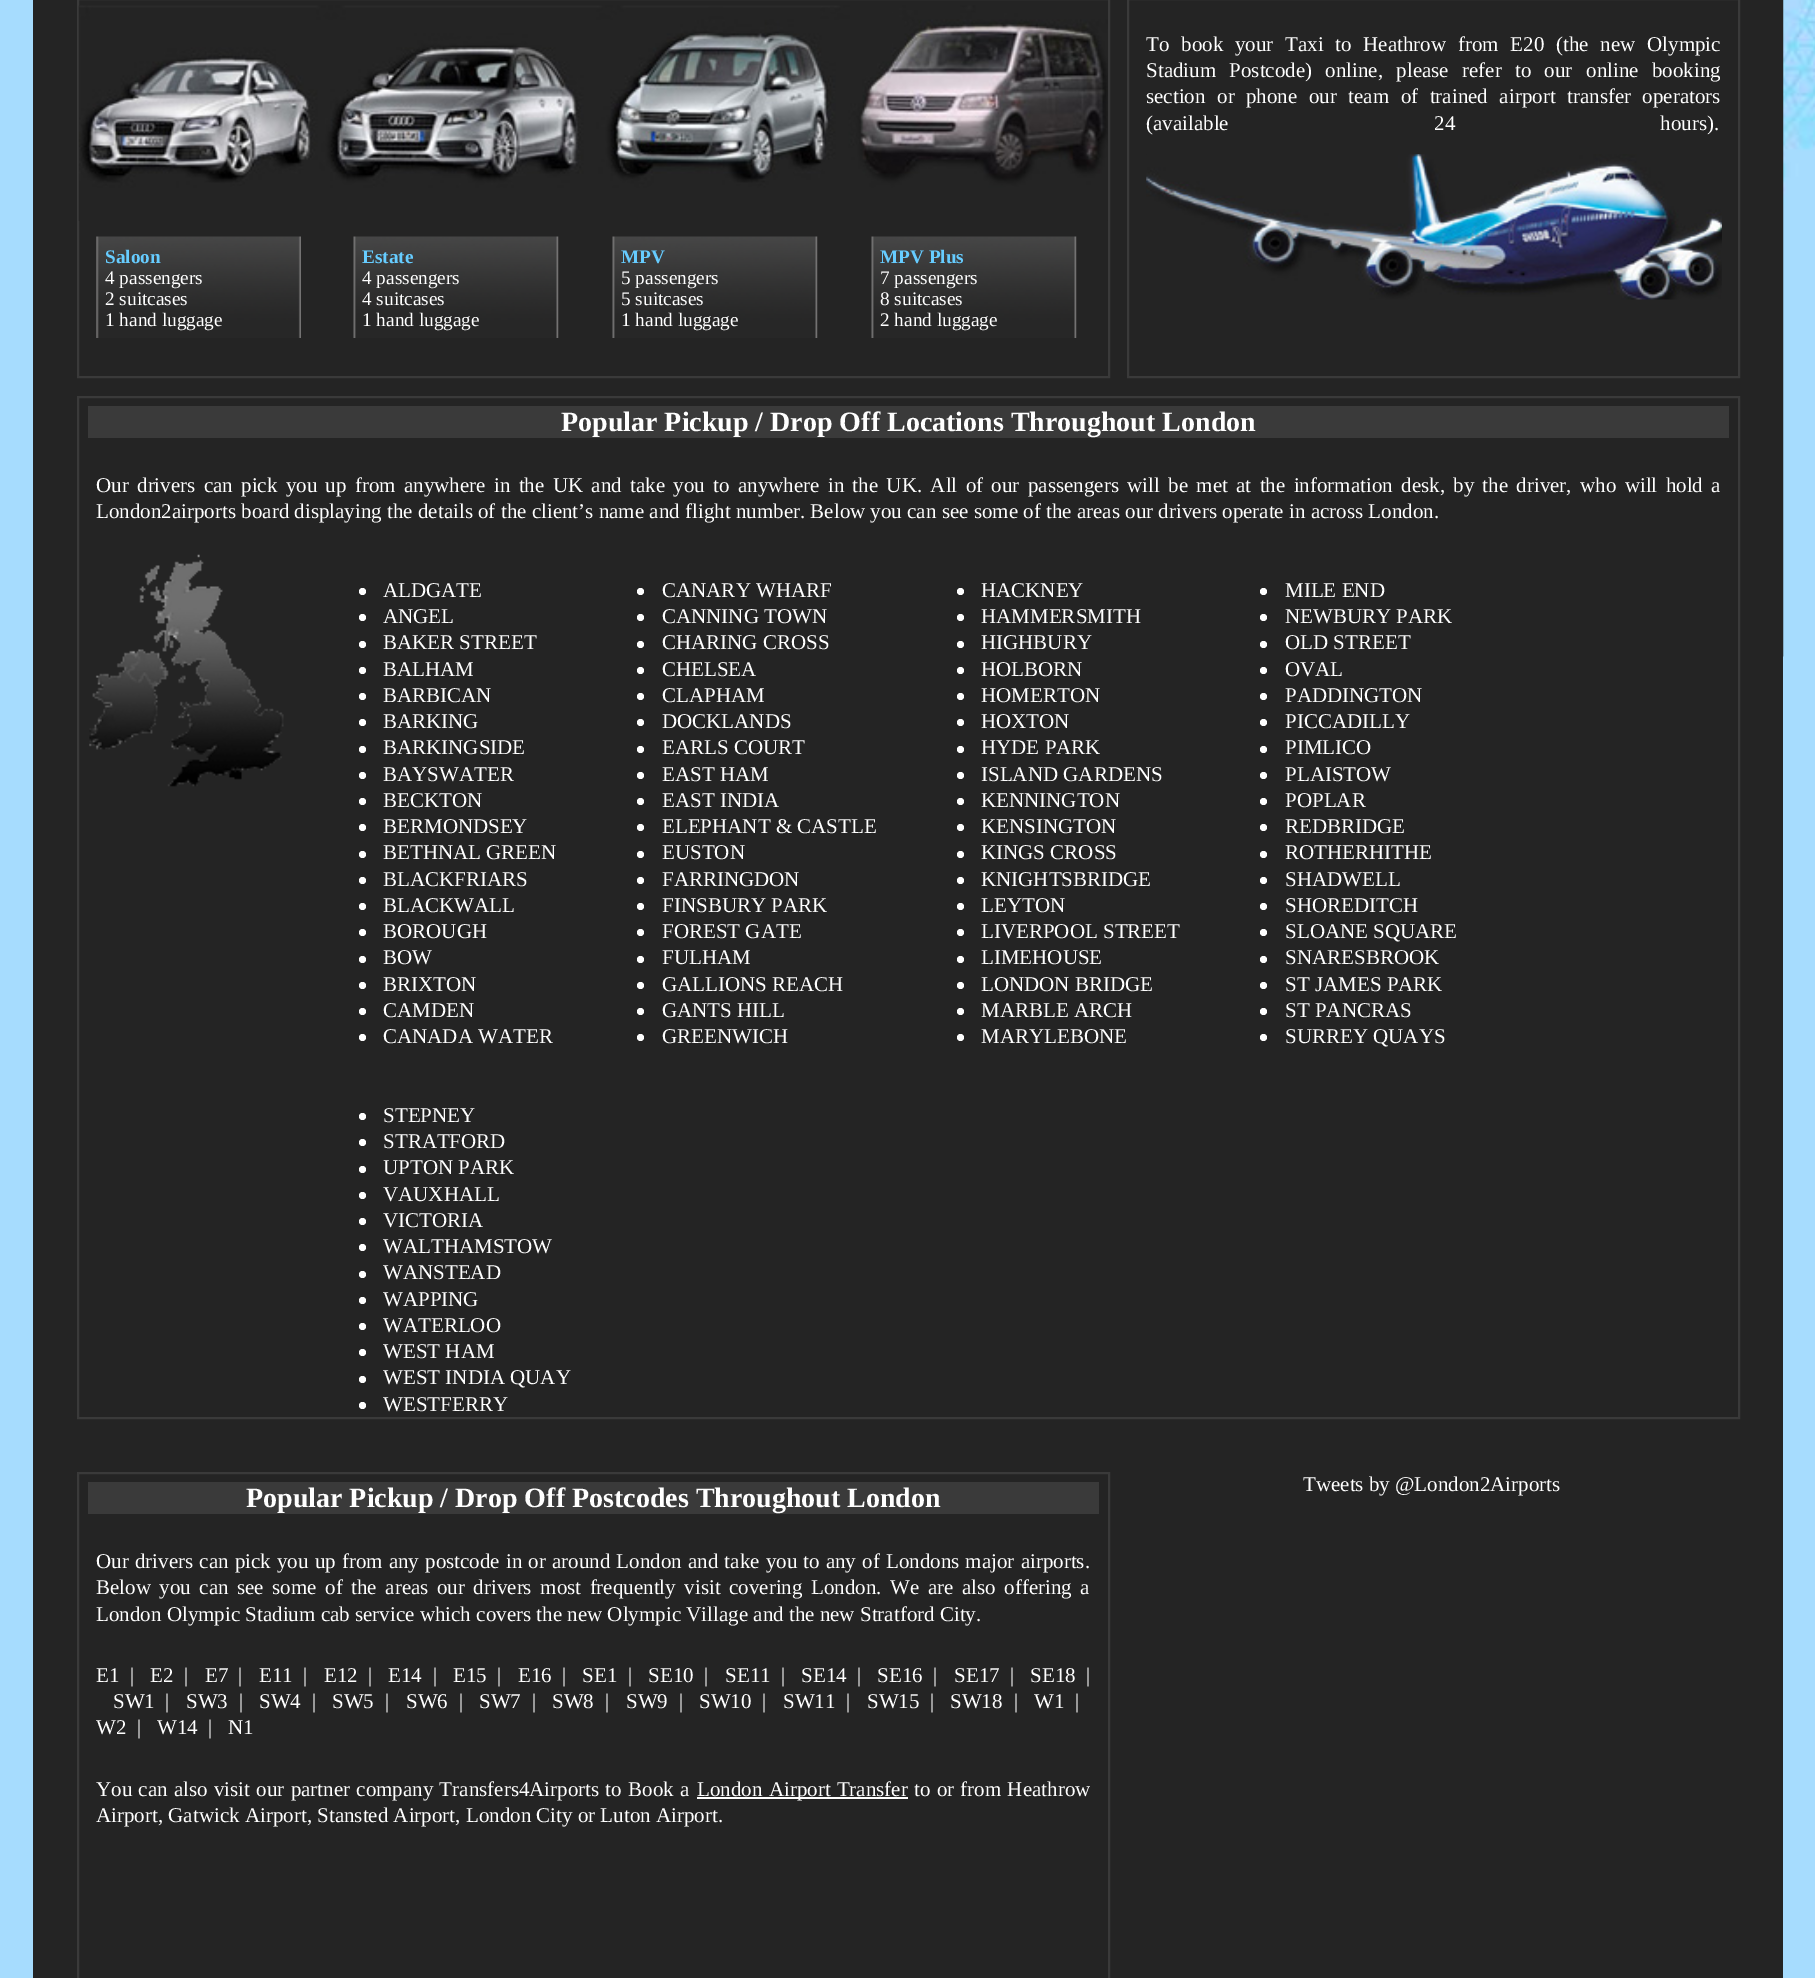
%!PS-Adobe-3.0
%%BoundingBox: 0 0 1815 1978
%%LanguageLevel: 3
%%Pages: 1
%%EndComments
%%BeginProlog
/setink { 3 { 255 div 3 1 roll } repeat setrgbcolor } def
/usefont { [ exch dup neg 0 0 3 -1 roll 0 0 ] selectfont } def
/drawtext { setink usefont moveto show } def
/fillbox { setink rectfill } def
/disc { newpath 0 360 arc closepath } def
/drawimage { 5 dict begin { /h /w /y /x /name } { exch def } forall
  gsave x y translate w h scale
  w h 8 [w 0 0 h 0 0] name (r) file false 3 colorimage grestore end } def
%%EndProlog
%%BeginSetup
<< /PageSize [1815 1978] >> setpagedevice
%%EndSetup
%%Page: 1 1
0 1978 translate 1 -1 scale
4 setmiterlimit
0 0 1815 1978 166 220 254 fillbox
(assets/img1.rgb) 1783 0 32 275 drawimage
33 0 1750 1978 36 36 36 fillbox
(assets/img2.rgb) 1783 0 1 657 drawimage
58 58 58 setink
2 setlinewidth
1128 -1 611 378 rectstroke
/LiberationSerif-Regular 21 usefont
255 255 255 setink
1146 51 moveto 6.5 0 32 (To book your) widthshow
1285 51 moveto 6.5 0 32 (Taxi to Heathrow from E20) widthshow
1556 51 moveto 6.5 0 32 (\(the new Olympic) widthshow
1146 77 moveto 8 0 32 (Stadium Postcode\) online, please refer to our) widthshow
1586 77 moveto 8 0 32 (online booking) widthshow
(section) 1146 103 /LiberationSerif-Regular 21 255 255 255 drawtext
1217 103 moveto 6.25 0 32 (or phone our team of trained airport transfer operators) widthshow
1146 130 moveto 200 0 32 (\(available 24 hours\).) widthshow
(assets/img3.rgb) 1146 154 576 146 drawimage
58 58 58 setink
78 -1 1031 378 rectstroke
(assets/img4.rgb) 78 5 1030 216 drawimage
(assets/img5.rgb) 96 236 205 102 drawimage
(Saloon) 105 263 /LiberationSerif-Bold 19.25 102 204 255 drawtext
(4 passengers) 105 284 /LiberationSerif-Regular 19.25 255 255 255 drawtext
(2 suitcases) 105 305 /LiberationSerif-Regular 19.25 255 255 255 drawtext
(1 hand luggage) 105 326 /LiberationSerif-Regular 19.25 255 255 255 drawtext
(assets/img6.rgb) 353 236 206 102 drawimage
(Estate) 362 263 /LiberationSerif-Bold 19.25 102 204 255 drawtext
(4 passengers) 362 284 /LiberationSerif-Regular 19.25 255 255 255 drawtext
(4 suitcases) 362 305 /LiberationSerif-Regular 19.25 255 255 255 drawtext
(1 hand luggage) 362 326 /LiberationSerif-Regular 19.25 255 255 255 drawtext
(assets/img7.rgb) 612 236 206 102 drawimage
(MPV) 621 263 /LiberationSerif-Bold 19.25 102 204 255 drawtext
(5 passengers) 621 284 /LiberationSerif-Regular 19.25 255 255 255 drawtext
(5 suitcases) 621 305 /LiberationSerif-Regular 19.25 255 255 255 drawtext
(1 hand luggage) 621 326 /LiberationSerif-Regular 19.25 255 255 255 drawtext
(assets/img7.rgb) 871 236 206 102 drawimage
(MPV Plus) 880 263 /LiberationSerif-Bold 19.25 102 204 255 drawtext
(7 passengers) 880 284 /LiberationSerif-Regular 19.25 255 255 255 drawtext
(8 suitcases) 880 305 /LiberationSerif-Regular 19.25 255 255 255 drawtext
(2 hand luggage) 880 326 /LiberationSerif-Regular 19.25 255 255 255 drawtext
58 58 58 setink
78 397 1661 1021 rectstroke
88 406 1641 32 58 58 58 fillbox
(Popular Pickup / Drop Off Locations Throughout London) 561 431 /LiberationSerif-Bold 28 255 255 255 drawtext
/LiberationSerif-Regular 21 usefont
96 492 moveto 3.1 0 32 (Our drivers can pick you up from anywhere in the UK and take you to anywhere in the UK. All of our passengers will be met at the information desk,) widthshow
1453 492 moveto 3.1 0 32 (by the driver, who will hold a) widthshow
(London2airports board displaying the details of the client’s name and flight number. Below you can see some of the areas our drivers operate in across London.) 96 518 /LiberationSerif-Regular 21 255 255 255 drawtext
(assets/img8.rgb) 89 554 195 233 drawimage
362.5 591.5 3.5 disc fill
(ALDGATE) 383 597 /LiberationSerif-Regular 21 255 255 255 drawtext
362.5 617.5 3.5 disc fill
(ANGEL) 383 623 /LiberationSerif-Regular 21 255 255 255 drawtext
362.5 644.5 3.5 disc fill
(BAKER STREET) 383 649 /LiberationSerif-Regular 21 255 255 255 drawtext
362.5 670.5 3.5 disc fill
(BALHAM) 383 676 /LiberationSerif-Regular 21 255 255 255 drawtext
362.5 696.5 3.5 disc fill
(BARBICAN) 383 702 /LiberationSerif-Regular 21 255 255 255 drawtext
362.5 722.5 3.5 disc fill
(BARKING) 383 728 /LiberationSerif-Regular 21 255 255 255 drawtext
362.5 749.5 3.5 disc fill
(BARKINGSIDE) 383 754 /LiberationSerif-Regular 21 255 255 255 drawtext
362.5 775.5 3.5 disc fill
(BAYSWATER) 383 781 /LiberationSerif-Regular 21 255 255 255 drawtext
362.5 801.5 3.5 disc fill
(BECKTON) 383 807 /LiberationSerif-Regular 21 255 255 255 drawtext
362.5 827.5 3.5 disc fill
(BERMONDSEY) 383 833 /LiberationSerif-Regular 21 255 255 255 drawtext
362.5 854.5 3.5 disc fill
(BETHNAL GREEN) 383 859 /LiberationSerif-Regular 21 255 255 255 drawtext
362.5 880.5 3.5 disc fill
(BLACKFRIARS) 383 886 /LiberationSerif-Regular 21 255 255 255 drawtext
362.5 906.5 3.5 disc fill
(BLACKWALL) 383 912 /LiberationSerif-Regular 21 255 255 255 drawtext
362.5 932.5 3.5 disc fill
(BOROUGH) 383 938 /LiberationSerif-Regular 21 255 255 255 drawtext
362.5 959.5 3.5 disc fill
(BOW) 383 964 /LiberationSerif-Regular 21 255 255 255 drawtext
362.5 985.5 3.5 disc fill
(BRIXTON) 383 991 /LiberationSerif-Regular 21 255 255 255 drawtext
362.5 1011.5 3.5 disc fill
(CAMDEN) 383 1017 /LiberationSerif-Regular 21 255 255 255 drawtext
362.5 1037.5 3.5 disc fill
(CANADA WATER) 383 1043 /LiberationSerif-Regular 21 255 255 255 drawtext
640.5 591.5 3.5 disc fill
(CANARY WHARF) 662 597 /LiberationSerif-Regular 21 255 255 255 drawtext
640.5 617.5 3.5 disc fill
(CANNING TOWN) 662 623 /LiberationSerif-Regular 21 255 255 255 drawtext
640.5 644.5 3.5 disc fill
(CHARING CROSS) 662 649 /LiberationSerif-Regular 21 255 255 255 drawtext
640.5 670.5 3.5 disc fill
(CHELSEA) 662 676 /LiberationSerif-Regular 21 255 255 255 drawtext
640.5 696.5 3.5 disc fill
(CLAPHAM) 662 702 /LiberationSerif-Regular 21 255 255 255 drawtext
640.5 722.5 3.5 disc fill
(DOCKLANDS) 662 728 /LiberationSerif-Regular 21 255 255 255 drawtext
640.5 749.5 3.5 disc fill
(EARLS COURT) 662 754 /LiberationSerif-Regular 21 255 255 255 drawtext
640.5 775.5 3.5 disc fill
(EAST HAM) 662 781 /LiberationSerif-Regular 21 255 255 255 drawtext
640.5 801.5 3.5 disc fill
(EAST INDIA) 662 807 /LiberationSerif-Regular 21 255 255 255 drawtext
640.5 827.5 3.5 disc fill
(ELEPHANT & CASTLE) 662 833 /LiberationSerif-Regular 21 255 255 255 drawtext
640.5 854.5 3.5 disc fill
(EUSTON) 662 859 /LiberationSerif-Regular 21 255 255 255 drawtext
640.5 880.5 3.5 disc fill
(FARRINGDON) 662 886 /LiberationSerif-Regular 21 255 255 255 drawtext
640.5 906.5 3.5 disc fill
(FINSBURY PARK) 662 912 /LiberationSerif-Regular 21 255 255 255 drawtext
640.5 932.5 3.5 disc fill
(FOREST GATE) 662 938 /LiberationSerif-Regular 21 255 255 255 drawtext
640.5 959.5 3.5 disc fill
(FULHAM) 662 964 /LiberationSerif-Regular 21 255 255 255 drawtext
640.5 985.5 3.5 disc fill
(GALLIONS REACH) 662 991 /LiberationSerif-Regular 21 255 255 255 drawtext
640.5 1011.5 3.5 disc fill
(GANTS HILL) 662 1017 /LiberationSerif-Regular 21 255 255 255 drawtext
640.5 1037.5 3.5 disc fill
(GREENWICH) 662 1043 /LiberationSerif-Regular 21 255 255 255 drawtext
960.5 591.5 3.5 disc fill
(HACKNEY) 981 597 /LiberationSerif-Regular 21 255 255 255 drawtext
960.5 617.5 3.5 disc fill
(HAMMERSMITH) 981 623 /LiberationSerif-Regular 21 255 255 255 drawtext
960.5 644.5 3.5 disc fill
(HIGHBURY) 981 649 /LiberationSerif-Regular 21 255 255 255 drawtext
960.5 670.5 3.5 disc fill
(HOLBORN) 981 676 /LiberationSerif-Regular 21 255 255 255 drawtext
960.5 696.5 3.5 disc fill
(HOMERTON) 981 702 /LiberationSerif-Regular 21 255 255 255 drawtext
960.5 722.5 3.5 disc fill
(HOXTON) 981 728 /LiberationSerif-Regular 21 255 255 255 drawtext
960.5 749.5 3.5 disc fill
(HYDE PARK) 981 754 /LiberationSerif-Regular 21 255 255 255 drawtext
960.5 775.5 3.5 disc fill
(ISLAND GARDENS) 981 781 /LiberationSerif-Regular 21 255 255 255 drawtext
960.5 801.5 3.5 disc fill
(KENNINGTON) 981 807 /LiberationSerif-Regular 21 255 255 255 drawtext
960.5 827.5 3.5 disc fill
(KENSINGTON) 981 833 /LiberationSerif-Regular 21 255 255 255 drawtext
960.5 854.5 3.5 disc fill
(KINGS CROSS) 981 859 /LiberationSerif-Regular 21 255 255 255 drawtext
960.5 880.5 3.5 disc fill
(KNIGHTSBRIDGE) 981 886 /LiberationSerif-Regular 21 255 255 255 drawtext
960.5 906.5 3.5 disc fill
(LEYTON) 981 912 /LiberationSerif-Regular 21 255 255 255 drawtext
960.5 932.5 3.5 disc fill
(LIVERPOOL STREET) 981 938 /LiberationSerif-Regular 21 255 255 255 drawtext
960.5 959.5 3.5 disc fill
(LIMEHOUSE) 981 964 /LiberationSerif-Regular 21 255 255 255 drawtext
960.5 985.5 3.5 disc fill
(LONDON BRIDGE) 981 991 /LiberationSerif-Regular 21 255 255 255 drawtext
960.5 1011.5 3.5 disc fill
(MARBLE ARCH) 981 1017 /LiberationSerif-Regular 21 255 255 255 drawtext
960.5 1037.5 3.5 disc fill
(MARYLEBONE) 981 1043 /LiberationSerif-Regular 21 255 255 255 drawtext
1263.5 591.5 3.5 disc fill
(MILE END) 1285 597 /LiberationSerif-Regular 21 255 255 255 drawtext
1263.5 617.5 3.5 disc fill
(NEWBURY PARK) 1285 623 /LiberationSerif-Regular 21 255 255 255 drawtext
1263.5 644.5 3.5 disc fill
(OLD STREET) 1285 649 /LiberationSerif-Regular 21 255 255 255 drawtext
1263.5 670.5 3.5 disc fill
(OVAL) 1285 676 /LiberationSerif-Regular 21 255 255 255 drawtext
1263.5 696.5 3.5 disc fill
(PADDINGTON) 1285 702 /LiberationSerif-Regular 21 255 255 255 drawtext
1263.5 722.5 3.5 disc fill
(PICCADILLY) 1285 728 /LiberationSerif-Regular 21 255 255 255 drawtext
1263.5 749.5 3.5 disc fill
(PIMLICO) 1285 754 /LiberationSerif-Regular 21 255 255 255 drawtext
1263.5 775.5 3.5 disc fill
(PLAISTOW) 1285 781 /LiberationSerif-Regular 21 255 255 255 drawtext
1263.5 801.5 3.5 disc fill
(POPLAR) 1285 807 /LiberationSerif-Regular 21 255 255 255 drawtext
1263.5 827.5 3.5 disc fill
(REDBRIDGE) 1285 833 /LiberationSerif-Regular 21 255 255 255 drawtext
1263.5 854.5 3.5 disc fill
(ROTHERHITHE) 1285 859 /LiberationSerif-Regular 21 255 255 255 drawtext
1263.5 880.5 3.5 disc fill
(SHADWELL) 1285 886 /LiberationSerif-Regular 21 255 255 255 drawtext
1263.5 906.5 3.5 disc fill
(SHOREDITCH) 1285 912 /LiberationSerif-Regular 21 255 255 255 drawtext
1263.5 932.5 3.5 disc fill
(SLOANE SQUARE) 1285 938 /LiberationSerif-Regular 21 255 255 255 drawtext
1263.5 959.5 3.5 disc fill
(SNARESBROOK) 1285 964 /LiberationSerif-Regular 21 255 255 255 drawtext
1263.5 985.5 3.5 disc fill
(ST JAMES PARK) 1285 991 /LiberationSerif-Regular 21 255 255 255 drawtext
1263.5 1011.5 3.5 disc fill
(ST PANCRAS) 1285 1017 /LiberationSerif-Regular 21 255 255 255 drawtext
1263.5 1037.5 3.5 disc fill
(SURREY QUAYS) 1285 1043 /LiberationSerif-Regular 21 255 255 255 drawtext
362.5 1116.5 3.5 disc fill
(STEPNEY) 383 1122 /LiberationSerif-Regular 21 255 255 255 drawtext
362.5 1142.5 3.5 disc fill
(STRATFORD) 383 1148 /LiberationSerif-Regular 21 255 255 255 drawtext
362.5 1169.5 3.5 disc fill
(UPTON PARK) 383 1174 /LiberationSerif-Regular 21 255 255 255 drawtext
362.5 1195.5 3.5 disc fill
(VAUXHALL) 383 1201 /LiberationSerif-Regular 21 255 255 255 drawtext
362.5 1221.5 3.5 disc fill
(VICTORIA) 383 1227 /LiberationSerif-Regular 21 255 255 255 drawtext
362.5 1247.5 3.5 disc fill
(WALTHAMSTOW) 383 1253 /LiberationSerif-Regular 21 255 255 255 drawtext
362.5 1274.5 3.5 disc fill
(WANSTEAD) 383 1279 /LiberationSerif-Regular 21 255 255 255 drawtext
362.5 1300.5 3.5 disc fill
(WAPPING) 383 1306 /LiberationSerif-Regular 21 255 255 255 drawtext
362.5 1326.5 3.5 disc fill
(WATERLOO) 383 1332 /LiberationSerif-Regular 21 255 255 255 drawtext
362.5 1352.5 3.5 disc fill
(WEST HAM) 383 1358 /LiberationSerif-Regular 21 255 255 255 drawtext
362.5 1379.5 3.5 disc fill
(WEST INDIA QUAY) 383 1384 /LiberationSerif-Regular 21 255 255 255 drawtext
362.5 1405.5 3.5 disc fill
(WESTFERRY) 383 1411 /LiberationSerif-Regular 21 255 255 255 drawtext
58 58 58 setink
78 1473 1031 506 rectstroke
88 1482 1011 32 58 58 58 fillbox
(Popular Pickup / Drop Off Postcodes Throughout London) 246 1507 /LiberationSerif-Bold 28 255 255 255 drawtext
/LiberationSerif-Regular 21 usefont
96 1568 moveto 0.9 0 32 (Our drivers can pick you up from any postcode in or around London and take you to any of Londons major airports.) widthshow
96 1594 moveto 3.25 0 32 (Below you can see some of the areas our drivers most frequently visit covering London. We are also offering a) widthshow
(London Olympic Stadium cab service which covers the new Olympic Village and the new Stratford City.) 96 1621 /LiberationSerif-Regular 21 255 255 255 drawtext
(E1) 96 1682 /LiberationSerif-Regular 21 255 255 255 drawtext
(|) 130 1682 /LiberationSerif-Regular 21 255 255 255 drawtext
(E2) 150 1682 /LiberationSerif-Regular 21 255 255 255 drawtext
(|) 184 1682 /LiberationSerif-Regular 21 255 255 255 drawtext
(E7) 205 1682 /LiberationSerif-Regular 21 255 255 255 drawtext
(|) 238 1682 /LiberationSerif-Regular 21 255 255 255 drawtext
(E11) 259 1682 /LiberationSerif-Regular 21 255 255 255 drawtext
(|) 303 1682 /LiberationSerif-Regular 21 255 255 255 drawtext
(E12) 324 1682 /LiberationSerif-Regular 21 255 255 255 drawtext
(|) 368 1682 /LiberationSerif-Regular 21 255 255 255 drawtext
(E14) 388 1682 /LiberationSerif-Regular 21 255 255 255 drawtext
(|) 433 1682 /LiberationSerif-Regular 21 255 255 255 drawtext
(E15) 453 1682 /LiberationSerif-Regular 21 255 255 255 drawtext
(|) 497 1682 /LiberationSerif-Regular 21 255 255 255 drawtext
(E16) 518 1682 /LiberationSerif-Regular 21 255 255 255 drawtext
(|) 562 1682 /LiberationSerif-Regular 21 255 255 255 drawtext
(SE1) 582 1682 /LiberationSerif-Regular 21 255 255 255 drawtext
(|) 628 1682 /LiberationSerif-Regular 21 255 255 255 drawtext
(SE10) 648 1682 /LiberationSerif-Regular 21 255 255 255 drawtext
(|) 704 1682 /LiberationSerif-Regular 21 255 255 255 drawtext
(SE11) 725 1682 /LiberationSerif-Regular 21 255 255 255 drawtext
(|) 781 1682 /LiberationSerif-Regular 21 255 255 255 drawtext
(SE14) 801 1682 /LiberationSerif-Regular 21 255 255 255 drawtext
(|) 857 1682 /LiberationSerif-Regular 21 255 255 255 drawtext
(SE16) 877 1682 /LiberationSerif-Regular 21 255 255 255 drawtext
(|) 933 1682 /LiberationSerif-Regular 21 255 255 255 drawtext
(SE17) 954 1682 /LiberationSerif-Regular 21 255 255 255 drawtext
(|) 1010 1682 /LiberationSerif-Regular 21 255 255 255 drawtext
(SE18) 1030 1682 /LiberationSerif-Regular 21 255 255 255 drawtext
(|) 1086 1682 /LiberationSerif-Regular 21 255 255 255 drawtext
(SW1) 113 1708 /LiberationSerif-Regular 21 255 255 255 drawtext
(|) 165 1708 /LiberationSerif-Regular 21 255 255 255 drawtext
(SW3) 186 1708 /LiberationSerif-Regular 21 255 255 255 drawtext
(|) 239 1708 /LiberationSerif-Regular 21 255 255 255 drawtext
(SW4) 259 1708 /LiberationSerif-Regular 21 255 255 255 drawtext
(|) 312 1708 /LiberationSerif-Regular 21 255 255 255 drawtext
(SW5) 332 1708 /LiberationSerif-Regular 21 255 255 255 drawtext
(|) 385 1708 /LiberationSerif-Regular 21 255 255 255 drawtext
(SW6) 406 1708 /LiberationSerif-Regular 21 255 255 255 drawtext
(|) 459 1708 /LiberationSerif-Regular 21 255 255 255 drawtext
(SW7) 479 1708 /LiberationSerif-Regular 21 255 255 255 drawtext
(|) 532 1708 /LiberationSerif-Regular 21 255 255 255 drawtext
(SW8) 552 1708 /LiberationSerif-Regular 21 255 255 255 drawtext
(|) 605 1708 /LiberationSerif-Regular 21 255 255 255 drawtext
(SW9) 626 1708 /LiberationSerif-Regular 21 255 255 255 drawtext
(|) 679 1708 /LiberationSerif-Regular 21 255 255 255 drawtext
(SW10) 699 1708 /LiberationSerif-Regular 21 255 255 255 drawtext
(|) 762 1708 /LiberationSerif-Regular 21 255 255 255 drawtext
(SW11) 783 1708 /LiberationSerif-Regular 21 255 255 255 drawtext
(|) 846 1708 /LiberationSerif-Regular 21 255 255 255 drawtext
(SW15) 867 1708 /LiberationSerif-Regular 21 255 255 255 drawtext
(|) 930 1708 /LiberationSerif-Regular 21 255 255 255 drawtext
(SW18) 950 1708 /LiberationSerif-Regular 21 255 255 255 drawtext
(|) 1014 1708 /LiberationSerif-Regular 21 255 255 255 drawtext
(W1) 1034 1708 /LiberationSerif-Regular 21 255 255 255 drawtext
(|) 1075 1708 /LiberationSerif-Regular 21 255 255 255 drawtext
(W2) 96 1734 /LiberationSerif-Regular 21 255 255 255 drawtext
(|) 137 1734 /LiberationSerif-Regular 21 255 255 255 drawtext
(W14) 157 1734 /LiberationSerif-Regular 21 255 255 255 drawtext
(|) 208 1734 /LiberationSerif-Regular 21 255 255 255 drawtext
(N1) 228 1734 /LiberationSerif-Regular 21 255 255 255 drawtext
96 1796 moveto 1 0 32 (You can also visit our partner company Transfers4Airports to Book a) widthshow
697 1797 211 2 255 255 255 fillbox
697 1796 moveto 1 0 32 (London Airport Transfer) widthshow
914 1796 moveto 1 0 32 (to or from Heathrow) widthshow
(Airport, Gatwick Airport, Stansted Airport, London City or Luton Airport.) 96 1822 /LiberationSerif-Regular 21 255 255 255 drawtext
(Tweets by @London2Airports) 1303 1491 /LiberationSerif-Regular 21 255 255 255 drawtext
showpage
%%EOF
